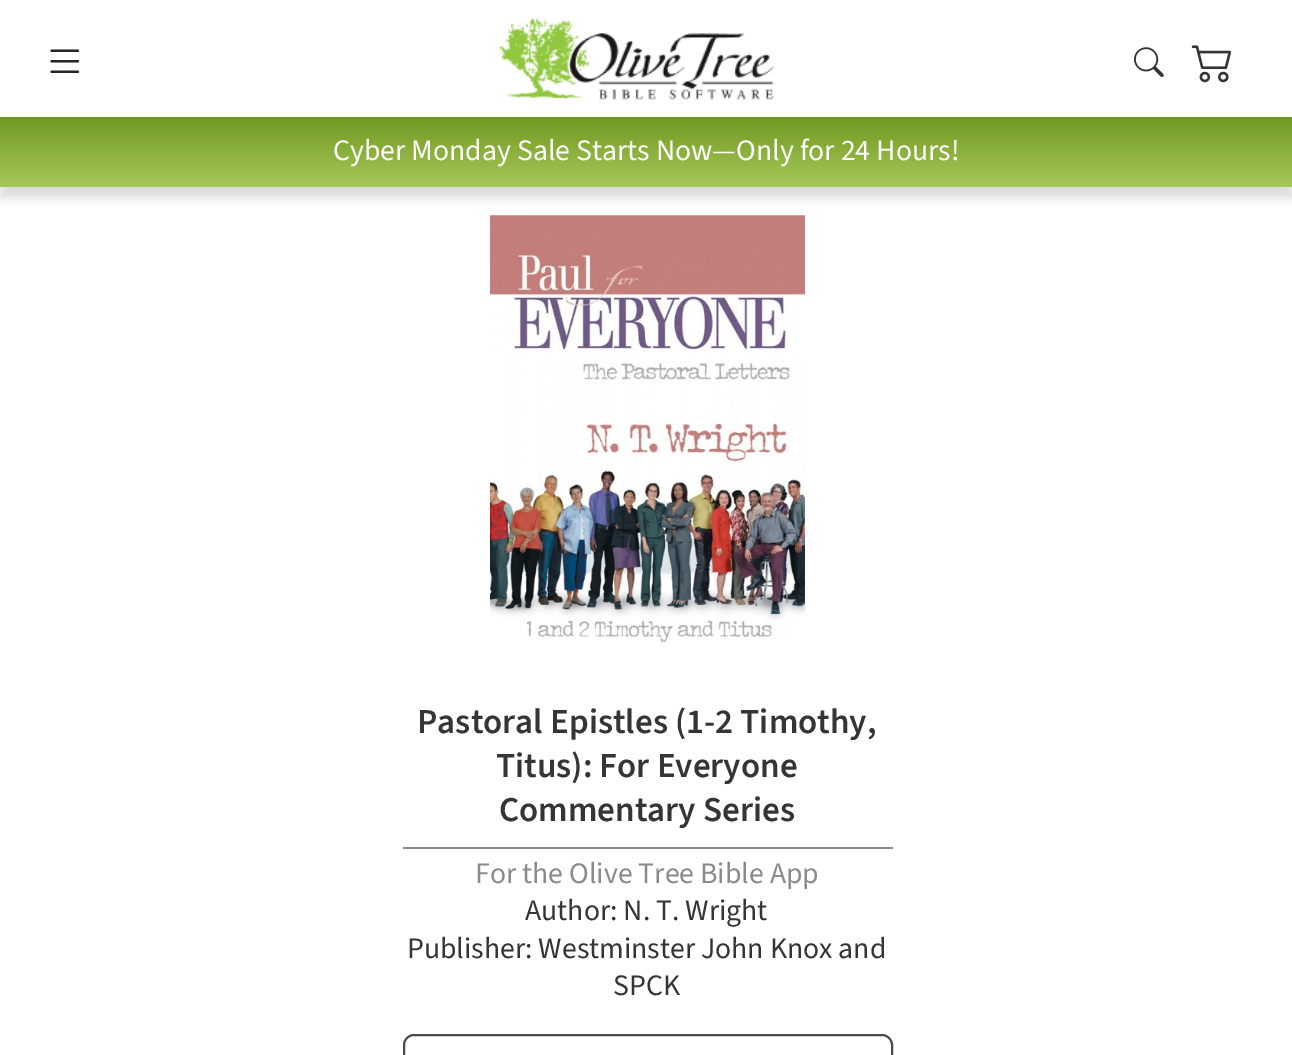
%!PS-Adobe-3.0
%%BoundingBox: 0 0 1292 1055
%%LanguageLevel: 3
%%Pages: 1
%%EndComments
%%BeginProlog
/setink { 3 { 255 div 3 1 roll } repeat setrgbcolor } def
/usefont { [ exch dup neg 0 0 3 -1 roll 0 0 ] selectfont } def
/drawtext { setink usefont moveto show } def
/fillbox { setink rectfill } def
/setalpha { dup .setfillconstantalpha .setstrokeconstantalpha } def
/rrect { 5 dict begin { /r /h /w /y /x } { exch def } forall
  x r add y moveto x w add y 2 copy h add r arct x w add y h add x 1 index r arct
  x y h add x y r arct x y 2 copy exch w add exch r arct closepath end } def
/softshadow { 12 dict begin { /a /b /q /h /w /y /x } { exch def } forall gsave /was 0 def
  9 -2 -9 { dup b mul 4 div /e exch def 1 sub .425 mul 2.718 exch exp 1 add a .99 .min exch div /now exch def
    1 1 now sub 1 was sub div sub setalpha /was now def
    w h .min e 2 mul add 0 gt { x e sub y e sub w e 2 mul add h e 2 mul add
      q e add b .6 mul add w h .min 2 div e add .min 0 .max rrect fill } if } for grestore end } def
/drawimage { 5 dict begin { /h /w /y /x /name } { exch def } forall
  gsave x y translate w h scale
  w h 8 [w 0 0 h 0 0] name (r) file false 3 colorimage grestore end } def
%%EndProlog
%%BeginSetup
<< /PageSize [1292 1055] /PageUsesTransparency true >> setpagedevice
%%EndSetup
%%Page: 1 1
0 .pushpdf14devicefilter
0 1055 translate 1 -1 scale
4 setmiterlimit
0 0 1292 1055 255 255 255 fillbox
(assets/img1.rgb) 50 49 30 24 drawimage
(assets/img2.rgb) 498 16 276 84 drawimage
(assets/img3.rgb) 1134 47 30 30 drawimage
(assets/img4.rgb) 1191 45 41 38 drawimage
0 0 0 setink
0 128 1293 70 0 5 0.13 softshadow
gsave 0 117 moveto 1292 117 lineto 1292 187 lineto 0 187 lineto closepath clip newpath
<< /ShadingType 2 /ColorSpace /DeviceRGB /Coords [647 117 647 187] /Extend [true true] /Function << /FunctionType 2 /Domain [0 1] /C0 [0.443 0.6 0.125] /C1 [0.651 0.784 0.357] /N 1 >> >> shfill grestore
(Cyber Monday Sale Starts Now—Only for 24 Hours!) 333 160 /SourceSans3-Regular 29.75 255 255 255 drawtext
(assets/img5.rgb) 490 215 315 428 drawimage
(Pastoral Epistles \(1-2 Timothy,) 417 733 /SourceSans3-SemiBold 35 53 53 53 drawtext
(Titus\): For Everyone) 496 777 /SourceSans3-SemiBold 35 53 53 53 drawtext
(Commentary Series) 499 821 /SourceSans3-SemiBold 35 53 53 53 drawtext
403 847 490 2 138 138 138 fillbox
(For the Olive Tree Bible App) 475 883 /SourceSans3-Regular 29.75 138 138 138 drawtext
(Author: N. T. Wright) 525 920 /SourceSans3-Regular 29.75 53 53 53 drawtext
(Publisher: Westminster John Knox and) 407 958 /SourceSans3-Regular 29.75 53 53 53 drawtext
(SPCK) 613 995 /SourceSans3-Regular 29.75 53 53 53 drawtext
75 75 75 setink
2 setlinewidth
404 1035 488 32 10 rrect stroke
.poppdf14devicefilter showpage
%%EOF
